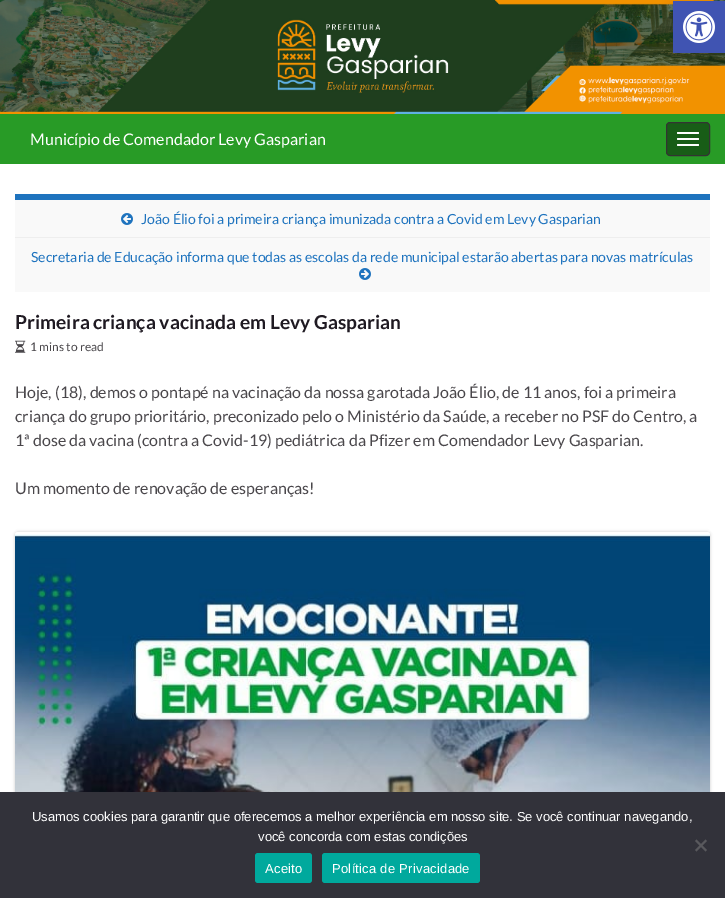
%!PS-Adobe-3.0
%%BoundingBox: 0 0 725 898
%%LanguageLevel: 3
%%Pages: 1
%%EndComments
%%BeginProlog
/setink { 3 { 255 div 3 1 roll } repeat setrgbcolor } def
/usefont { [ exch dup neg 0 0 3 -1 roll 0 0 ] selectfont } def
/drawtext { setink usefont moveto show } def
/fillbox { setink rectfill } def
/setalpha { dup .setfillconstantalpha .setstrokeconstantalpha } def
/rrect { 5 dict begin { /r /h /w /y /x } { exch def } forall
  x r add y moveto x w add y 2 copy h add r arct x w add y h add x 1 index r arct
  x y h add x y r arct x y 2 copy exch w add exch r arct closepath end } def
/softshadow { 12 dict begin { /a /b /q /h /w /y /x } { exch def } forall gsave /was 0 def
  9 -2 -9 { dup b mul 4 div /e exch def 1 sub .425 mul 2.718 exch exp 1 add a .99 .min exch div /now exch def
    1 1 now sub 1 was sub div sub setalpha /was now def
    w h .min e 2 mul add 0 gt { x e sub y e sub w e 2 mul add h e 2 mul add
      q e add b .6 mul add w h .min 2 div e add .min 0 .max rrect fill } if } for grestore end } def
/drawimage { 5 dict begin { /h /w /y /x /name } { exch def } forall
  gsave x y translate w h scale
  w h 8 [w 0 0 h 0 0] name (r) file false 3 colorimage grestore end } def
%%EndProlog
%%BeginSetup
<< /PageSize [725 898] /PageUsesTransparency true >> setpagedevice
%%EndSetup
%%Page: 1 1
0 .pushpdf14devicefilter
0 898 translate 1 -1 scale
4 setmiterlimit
0 0 725 898 255 255 255 fillbox
(assets/img2.rgb) 0 0 725 114 drawimage
0 0 0 setink
673 1 52 52 0 5 0.1 softshadow
673 1 52 52 64 84 178 fillbox
(assets/img1.rgb) 683 11 32 32 drawimage
0 114 725 50 40 155 38 fillbox
(Município de Comendador Levy Gasparian) 30 145 /Lato-Regular 16 255 255 255 drawtext
24 93 23 setink
666.5 122.5 43 33 3.5 rrect gsave fill grestore
51 51 51 setink
stroke
255 255 255 setink
677 132 22 2 1 rrect fill
677 138 22 2 1 rrect fill
677 144 22 2 1 rrect fill
15 200 695 92 249 249 249 fillbox
15 194 695 6 30 115 190 fillbox
(assets/img3.rgb) 121 213 12 12 drawimage
(João Élio foi a primeira criança imunizada contra a Covid em Levy Gasparian) 141 224 /Lato-Regular 14 30 115 190 drawtext
15 237 695 1 238 238 238 fillbox
(Secretaria de Educação informa que todas as escolas da rede municipal estarão abertas para novas matrículas) 31 262 /Lato-Regular 14 30 115 190 drawtext
(assets/img4.rgb) 359 268 12 12 drawimage
(Primeira criança vacinada em Levy Gasparian) 15 329 /Lato-Bold 19.2 31 26 34 drawtext
(assets/img5.rgb) 15 340 11 13 drawimage
(1 mins to read) 30 351 /Lato-Regular 12 74 71 75 drawtext
(Hoje, \(18\), demos o pontapé na vacinação da nossa garotada João Élio, de 11 anos, foi a primeira) 15 398 /Lato-Regular 16 74 71 75 drawtext
(criança do grupo prioritário, preconizado pelo o Ministério da Saúde, a receber no PSF do Centro, a) 15 422 /Lato-Regular 16 74 71 75 drawtext
(1ª dose da vacina \(contra a Covid-19\) pediátrica da Pfizer em Comendador Levy Gasparian.) 15 446 /Lato-Regular 16 74 71 75 drawtext
(Um momento de renovação de esperanças!) 15 494 /Lato-Regular 16 74 71 75 drawtext
204 204 204 setink
15 532 695 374 3 1.5 1 softshadow
(assets/img6.rgb) 15 532 695 260 drawimage
0 792 725 106 50 50 58 fillbox
(Usamos cookies para garantir que oferecemos a melhor experiência em nosso site. Se você continuar navegando,) 32 821 /LiberationSans-Regular 13 255 255 255 drawtext
(você concorda com estas condições) 258 841 /LiberationSans-Regular 13 255 255 255 drawtext
89 89 93 setink
705.5 839.5 moveto 707 841 lineto 696.5 851.5 lineto 695 850 lineto closepath fill
695 841 moveto 696.5 839.5 lineto 707 850 lineto 705.5 851.5 lineto closepath fill
0 169 157 setink
255 853 57 30 3 rrect fill
255 255 255 setink
265 873 moveto 0.25 0 (Aceito) ashow
0 169 157 setink
322 853 158 30 3 rrect fill
255 255 255 setink
332 873 moveto 0.25 0 (Política de Privacidade) ashow
.poppdf14devicefilter showpage
%%EOF
